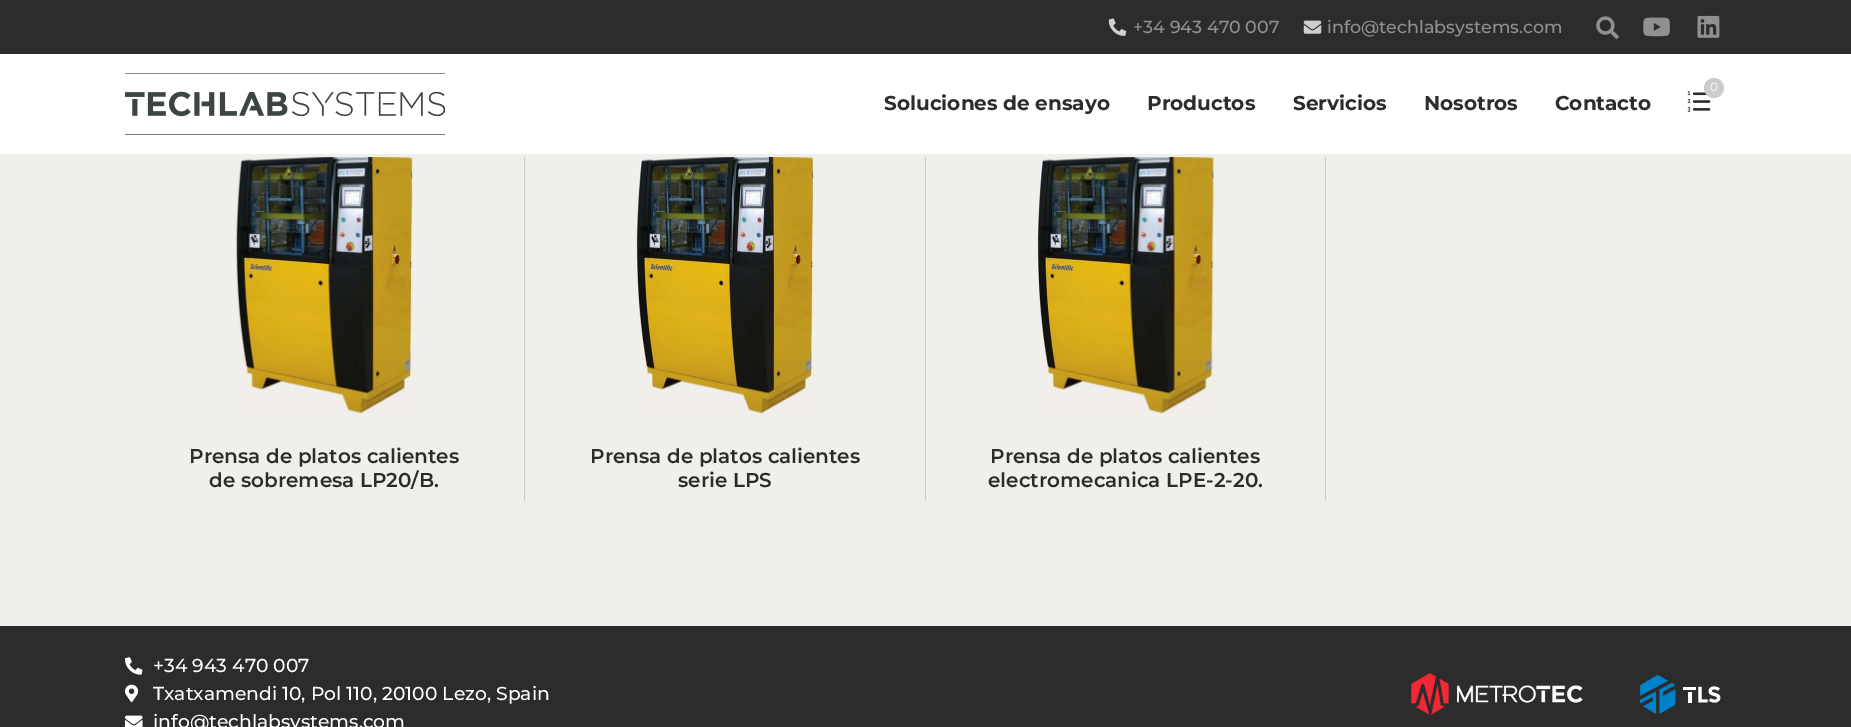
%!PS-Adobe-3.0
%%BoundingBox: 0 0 1851 727
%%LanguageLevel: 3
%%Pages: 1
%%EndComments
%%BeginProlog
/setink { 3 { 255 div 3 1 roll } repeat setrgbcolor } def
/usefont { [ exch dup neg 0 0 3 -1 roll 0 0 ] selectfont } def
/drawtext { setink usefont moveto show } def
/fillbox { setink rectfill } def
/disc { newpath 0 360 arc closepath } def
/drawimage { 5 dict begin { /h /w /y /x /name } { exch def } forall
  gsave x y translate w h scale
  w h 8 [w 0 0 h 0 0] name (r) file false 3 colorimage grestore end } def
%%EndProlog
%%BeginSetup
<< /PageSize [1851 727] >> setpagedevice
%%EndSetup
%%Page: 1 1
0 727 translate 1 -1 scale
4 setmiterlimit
0 0 1851 727 240 240 234 fillbox
0 0 1851 54 44 44 44 fillbox
(assets/img1.rgb) 1108 18 19 18 drawimage
(+34 943 470 007) 1133 33 /Montserrat-Medium 17.5 144 144 144 drawtext
(assets/img2.rgb) 1303 20 19 14 drawimage
(info@techlabsystems.com) 1327 33 /Montserrat-Medium 17.5 144 144 144 drawtext
(assets/img3.rgb) 1596 16 23 23 drawimage
(assets/img4.rgb) 1643 17 27 20 drawimage
(assets/img5.rgb) 1697 15 23 23 drawimage
0 54 1851 100 255 255 255 fillbox
(assets/img6.rgb) 125 73 320 62 drawimage
(assets/img7.rgb) 1687 91 24 21 drawimage
204 204 204 setink
1714 88 10 disc fill
(0) 1710 91 /Montserrat-Regular 12 255 255 255 drawtext
(Soluciones de ensayo) 884 110 /Montserrat-Bold 20 44 44 44 drawtext
(Productos) 1147 110 /Montserrat-Bold 20 44 44 44 drawtext
(Servicios) 1293 110 /Montserrat-Bold 20 44 44 44 drawtext
(Nosotros) 1424 110 /Montserrat-Bold 20 44 44 44 drawtext
(Contacto) 1555 110 /Montserrat-Bold 20 44 44 44 drawtext
524 157 1 344 204 204 204 fillbox
(assets/img8.rgb) 235 157 179 257 drawimage
(Prensa de platos calientes) 189 463 /Montserrat-SemiBold 20 44 44 44 drawtext
(de sobremesa LP20/B.) 209 487 /Montserrat-SemiBold 20 44 44 44 drawtext
925 157 1 344 204 204 204 fillbox
(assets/img9.rgb) 631 157 184 257 drawimage
(Prensa de platos calientes) 590 463 /Montserrat-SemiBold 20 44 44 44 drawtext
(serie LPS) 678 487 /Montserrat-SemiBold 20 44 44 44 drawtext
1325 157 1 344 204 204 204 fillbox
(assets/img10.rgb) 1036 157 180 257 drawimage
(Prensa de platos calientes) 990 463 /Montserrat-SemiBold 20 44 44 44 drawtext
(electromecanica LPE-2-20.) 988 487 /Montserrat-SemiBold 20 44 44 44 drawtext
0 626 1851 101 44 44 44 fillbox
(assets/img11.rgb) 125 657 18 18 drawimage
(+34 943 470 007) 153 672 /Montserrat-Medium 18.75 255 255 255 drawtext
(assets/img12.rgb) 125 684 14 19 drawimage
(Txatxamendi 10, Pol 110, 20100 Lezo, Spain) 153 700 /Montserrat-Medium 18.75 255 255 255 drawtext
(assets/img13.rgb) 125 715 18 12 drawimage
(info@techlabsystems.com) 153 728 /Montserrat-Medium 18.75 255 255 255 drawtext
(assets/img14.rgb) 1411 673 172 42 drawimage
(assets/img15.rgb) 1640 675 81 39 drawimage
showpage
%%EOF
